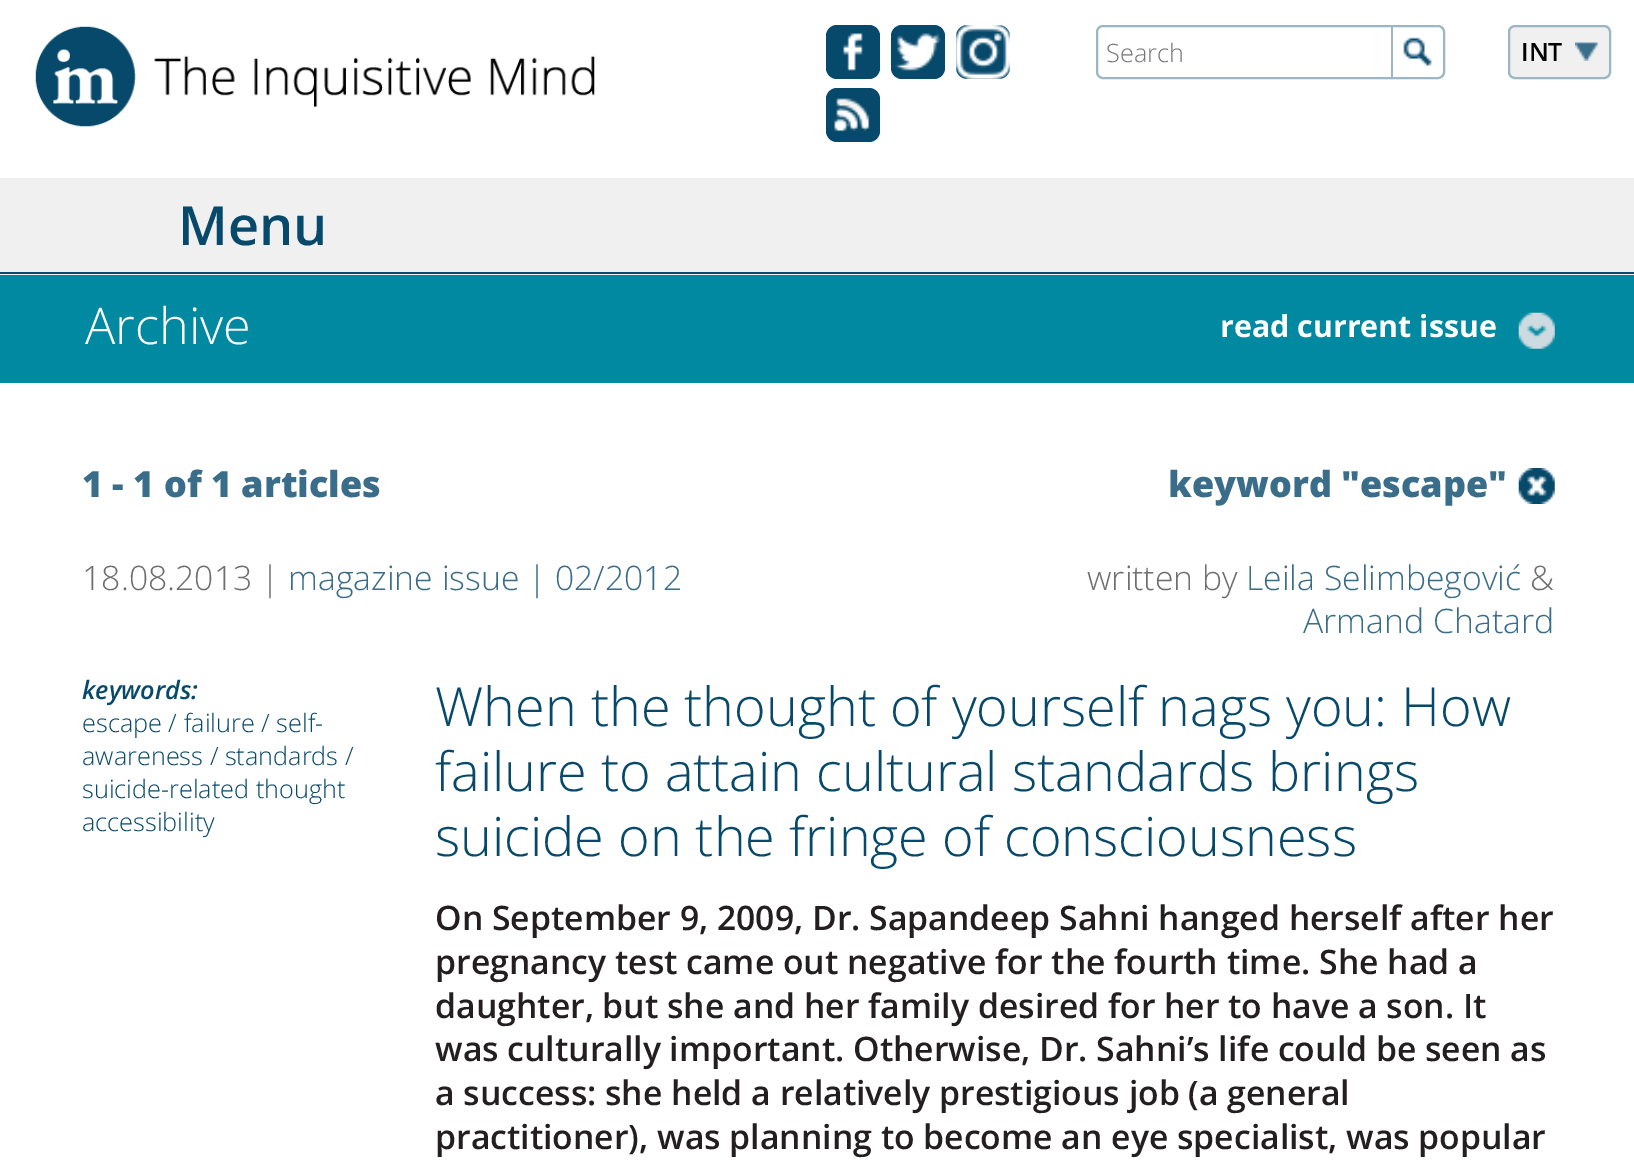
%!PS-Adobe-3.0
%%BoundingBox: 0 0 1634 1160
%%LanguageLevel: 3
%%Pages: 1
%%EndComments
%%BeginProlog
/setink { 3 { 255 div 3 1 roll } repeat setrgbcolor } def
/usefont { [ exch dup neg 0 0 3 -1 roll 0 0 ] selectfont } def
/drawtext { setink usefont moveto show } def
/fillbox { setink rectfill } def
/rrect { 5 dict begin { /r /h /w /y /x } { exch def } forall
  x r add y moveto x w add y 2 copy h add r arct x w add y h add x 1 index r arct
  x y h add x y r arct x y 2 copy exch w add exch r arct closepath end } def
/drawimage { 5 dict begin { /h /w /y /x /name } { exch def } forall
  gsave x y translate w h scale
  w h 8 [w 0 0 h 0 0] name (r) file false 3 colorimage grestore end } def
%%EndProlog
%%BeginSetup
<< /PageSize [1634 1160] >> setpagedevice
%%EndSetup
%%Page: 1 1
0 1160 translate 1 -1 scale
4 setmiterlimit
0 0 1634 1160 255 255 255 fillbox
(assets/img1.rgb) 35 26 560 101 drawimage
7 73 107 setink
826 25 54 54 11 rrect fill
(assets/img2.rgb) 843 33 20 38 drawimage
891 25 54 54 11 rrect fill
(assets/img3.rgb) 895 33 46 38 drawimage
956 25 54 54 11 rrect fill
(assets/img4.rgb) 956 25 54 54 drawimage
826 88 54 54 11 rrect fill
(assets/img5.rgb) 834 98 36 34 drawimage
156 182 196 setink
2 setlinewidth
1097 26 347 52 6 rrect stroke
(Search) 1106 62 /OpenSans-Light 25.25 117 117 117 drawtext
1391 27 2 50 156 182 196 fillbox
(assets/img6.rgb) 1403 37 29 29 drawimage
240 240 240 setink
1508 25 103 54 7 rrect fill
(assets/img7.rgb) 1575 42 24 19 drawimage
156 182 196 setink
1509 26 101 52 6 rrect stroke
(INT) 1521 61 /OpenSans-SemiBold 25.25 0 0 0 drawtext
0 178 1634 97 240 240 240 fillbox
0 272 1634 2 7 73 107 fillbox
(Menu) 178 245 /OpenSans-SemiBold 54 7 73 107 drawtext
0 275 1634 108 0 137 161 fillbox
(Archive) 85 344 /OpenSans-Light 50.5 255 255 255 drawtext
(assets/img8.rgb) 1518 312 37 37 drawimage
(read current issue) 1220 337 /OpenSans-Bold 30.4 255 255 255 drawtext
(1 - 1 of 1 articles) 82 497 /OpenSans-ExtraBold 36 57 109 137 drawtext
(keyword "escape") 1168 497 /OpenSans-ExtraBold 36 57 109 137 drawtext
(assets/img9.rgb) 1518 468 37 36 drawimage
(18.08.2013 |) 82 590 /OpenSans-Light 33.75 110 110 110 drawtext
(magazine issue | 02/2012) 288 590 /OpenSans-Light 33.75 57 109 137 drawtext
(written by) 1087 590 /OpenSans-Light 33.75 110 110 110 drawtext
(Leila Selimbegović) 1246 590 /OpenSans-Light 33.75 57 109 137 drawtext
(&) 1530 590 /OpenSans-Light 33.75 110 110 110 drawtext
(Armand Chatard) 1303 633 /OpenSans-Light 33.75 57 109 137 drawtext
(keywords:) 82 699 /OpenSans-SemiBoldItalic 25.25 7 73 107 drawtext
(escape / failure / self-) 82 732 /OpenSans-Light 25.25 7 73 107 drawtext
(awareness / standards /) 82 765 /OpenSans-Light 25.25 7 73 107 drawtext
(suicide-related thought) 82 798 /OpenSans-Light 25.25 7 73 107 drawtext
(accessibility) 82 831 /OpenSans-Light 25.25 7 73 107 drawtext
(When the thought of yourself nags you: How) 435 726 /OpenSans-Light 54 7 73 107 drawtext
(failure to attain cultural standards brings) 435 791 /OpenSans-Light 54 7 73 107 drawtext
(suicide on the fringe of consciousness) 435 856 /OpenSans-Light 54 7 73 107 drawtext
(On September 9, 2009, Dr. Sapandeep Sahni hanged herself after her) 435 930 /OpenSans-SemiBold 33.75 35 31 32 drawtext
(pregnancy test came out negative for the fourth time. She had a) 435 974 /OpenSans-SemiBold 33.75 35 31 32 drawtext
(daughter, but she and her family desired for her to have a son. It) 435 1018 /OpenSans-SemiBold 33.75 35 31 32 drawtext
(was culturally important. Otherwise, Dr. Sahni’s life could be seen as) 435 1061 /OpenSans-SemiBold 33.75 35 31 32 drawtext
(a success: she held a relatively prestigious job \(a general) 435 1105 /OpenSans-SemiBold 33.75 35 31 32 drawtext
(practitioner\), was planning to become an eye specialist, was popular) 435 1149 /OpenSans-SemiBold 33.75 35 31 32 drawtext
showpage
%%EOF
